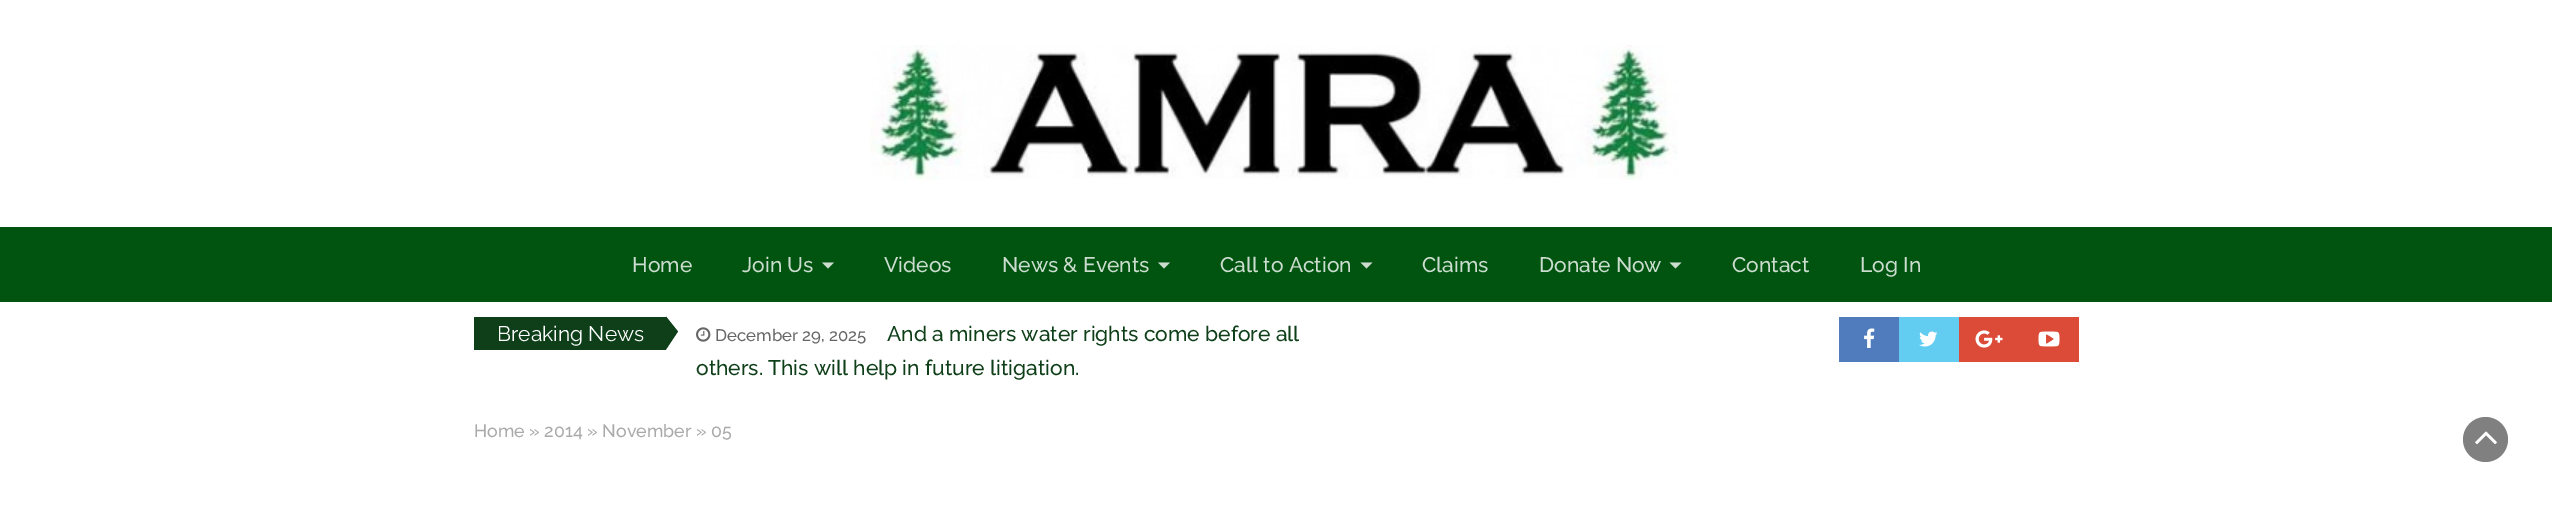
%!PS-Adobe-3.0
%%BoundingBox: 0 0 2552 507
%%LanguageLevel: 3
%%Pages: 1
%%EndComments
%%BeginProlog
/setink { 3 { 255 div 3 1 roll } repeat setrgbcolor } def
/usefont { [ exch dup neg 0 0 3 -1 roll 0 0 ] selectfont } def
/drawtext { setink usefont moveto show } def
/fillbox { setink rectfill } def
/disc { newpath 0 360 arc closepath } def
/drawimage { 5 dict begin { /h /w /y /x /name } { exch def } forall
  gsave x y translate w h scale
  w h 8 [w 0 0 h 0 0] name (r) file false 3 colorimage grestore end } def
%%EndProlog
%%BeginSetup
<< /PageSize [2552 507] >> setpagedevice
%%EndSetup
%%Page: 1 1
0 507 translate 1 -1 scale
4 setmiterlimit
0 0 2552 507 255 255 255 fillbox
(assets/img1.rgb) 870 45 808 135 drawimage
0 227 2552 75 0 84 16 fillbox
(Home) 632 272 /Raleway-Medium 21 204 221 207 drawtext
(Join Us) 742 272 /Raleway-Medium 21 204 221 207 drawtext
822 262.5 moveto 834 262.5 lineto 828 268.5 lineto closepath fill
(Videos) 884 272 /Raleway-Medium 21 204 221 207 drawtext
(News & Events) 1002 272 /Raleway-Medium 21 204 221 207 drawtext
1158 262.5 moveto 1170 262.5 lineto 1164 268.5 lineto closepath fill
(Call to Action) 1220 272 /Raleway-Medium 21 204 221 207 drawtext
1360.5 262.5 moveto 1372.5 262.5 lineto 1366.5 268.5 lineto closepath fill
(Claims) 1422 272 /Raleway-Medium 21 204 221 207 drawtext
(Donate Now) 1539 272 /Raleway-Medium 21 204 221 207 drawtext
1669.5 262.5 moveto 1681.5 262.5 lineto 1675.5 268.5 lineto closepath fill
(Contact) 1732 272 /Raleway-Medium 21 204 221 207 drawtext
(Log In) 1860 272 /Raleway-Medium 21 204 221 207 drawtext
474 317 192 33 14 63 25 fillbox
(Breaking News) 497 341 /Raleway-Regular 21 255 255 255 drawtext
14 63 25 setink
666 349.5 moveto 666 316.5 lineto 678 331.5 lineto closepath fill
(assets/img2.rgb) 696 327 15 15 drawimage
(December 29, 2025) 715 341 /Raleway-Medium 16.75 102 102 102 drawtext
(And a miners water rights come before all) 887 341 /Raleway-Medium 21 14 63 25 drawtext
(others. This will help in future litigation.) 696 375 /Raleway-Medium 21 14 63 25 drawtext
1839 317 60 45 80 124 190 fillbox
(assets/img3.rgb) 1864 328 11 20 drawimage
1899 317 60 45 99 204 241 fillbox
(assets/img4.rgb) 1919 331 19 16 drawimage
1959 317 120 45 220 74 56 fillbox
(assets/img5.rgb) 1975 330 28 18 drawimage
(assets/img6.rgb) 2038 331 22 16 drawimage
(Home » 2014 » November » 05) 474 437 /Raleway-Medium 17.8 170 170 170 drawtext
128 128 128 setink
2485.5 439.5 22.5 disc fill
(assets/img7.rgb) 2475 431 22 14 drawimage
showpage
%%EOF
